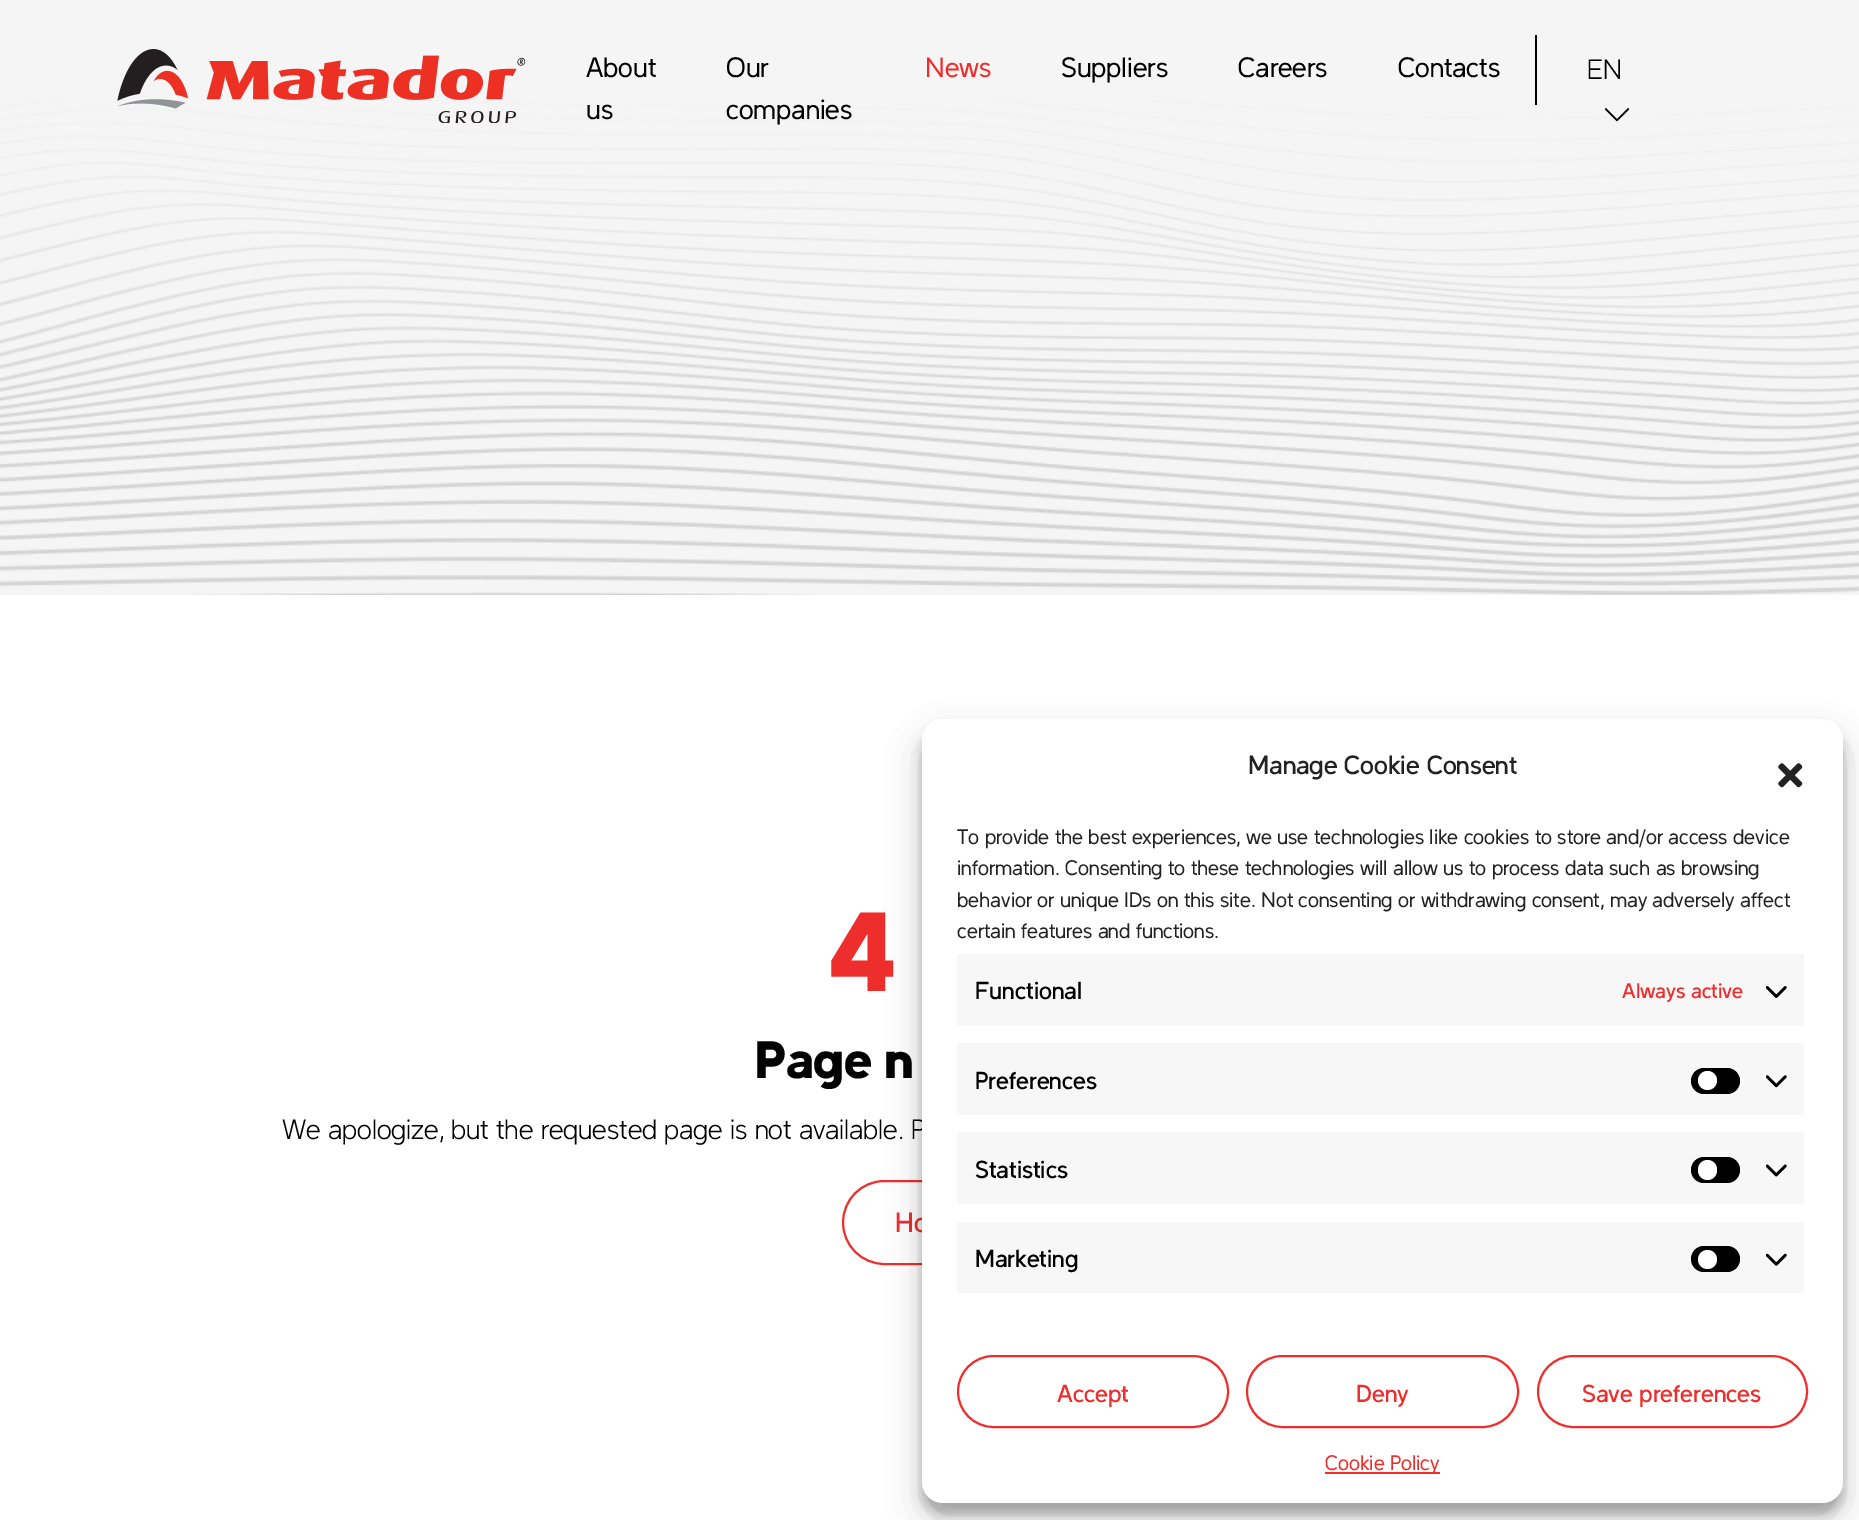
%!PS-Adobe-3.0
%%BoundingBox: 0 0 1859 1520
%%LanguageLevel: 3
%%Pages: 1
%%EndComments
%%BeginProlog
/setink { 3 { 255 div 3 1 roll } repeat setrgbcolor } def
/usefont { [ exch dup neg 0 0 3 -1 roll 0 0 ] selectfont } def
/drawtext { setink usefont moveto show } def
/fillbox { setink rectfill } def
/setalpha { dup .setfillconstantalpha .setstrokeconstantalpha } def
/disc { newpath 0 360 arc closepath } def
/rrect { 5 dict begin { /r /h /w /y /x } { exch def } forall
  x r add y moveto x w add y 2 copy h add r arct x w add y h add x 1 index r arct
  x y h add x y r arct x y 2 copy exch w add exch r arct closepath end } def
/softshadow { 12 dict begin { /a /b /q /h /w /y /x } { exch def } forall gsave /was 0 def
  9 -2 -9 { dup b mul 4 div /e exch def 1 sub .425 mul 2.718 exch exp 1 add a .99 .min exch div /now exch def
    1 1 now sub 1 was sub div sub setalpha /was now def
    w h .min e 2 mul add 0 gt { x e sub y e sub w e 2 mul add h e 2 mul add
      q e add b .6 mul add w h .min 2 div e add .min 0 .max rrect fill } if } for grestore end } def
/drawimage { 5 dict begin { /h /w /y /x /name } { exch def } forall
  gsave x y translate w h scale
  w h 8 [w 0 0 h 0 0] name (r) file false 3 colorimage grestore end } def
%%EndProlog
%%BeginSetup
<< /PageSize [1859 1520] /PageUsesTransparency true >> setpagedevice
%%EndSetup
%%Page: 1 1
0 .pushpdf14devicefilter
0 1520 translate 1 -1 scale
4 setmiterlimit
0 0 1859 1520 255 255 255 fillbox
0 0 1859 595 245 245 245 fillbox
(assets/img3.rgb) 0 100 1859 495 drawimage
(assets/img1.rgb) 117 49 408 74 drawimage
(About) 586 77 /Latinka-Regular 28 0 0 0 drawtext
(us) 586 119 /Latinka-Regular 28 0 0 0 drawtext
(Our) 726 77 /Latinka-Regular 28 0 0 0 drawtext
(companies) 726 119 /Latinka-Regular 28 0 0 0 drawtext
(News) 925 77 /Latinka-Regular 28 238 46 45 drawtext
(Suppliers) 1061 77 /Latinka-Regular 28 0 0 0 drawtext
(Careers) 1238 77 /Latinka-Regular 28 0 0 0 drawtext
(Contacts) 1398 77 /Latinka-Regular 28 0 0 0 drawtext
1535 35 2 70 0 0 0 fillbox
(EN) 1587 79 /Latinka-Light 28 0 0 0 drawtext
(assets/img2.rgb) 1604 108 26 14 drawimage
(4) 828 991 /Latinka-ExtraBold 112 238 46 45 drawtext
(Page n) 755 1078 /Latinka-ExtraBold 52.5 0 0 0 drawtext
(We apologize, but the requested page is not available. P) 282 1139 /Latinka-Light 28 0 0 0 drawtext
238 46 45 setink
2 setlinewidth
843 1181 175 83 41.5 rrect stroke
(Ho) 895 1232 /Latinka-Medium 28 238 46 45 drawtext
0 0 0 setink
922 730 921 784 21 5 0.23 softshadow
922 737 921 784 21 17.5 0.19 softshadow
255 255 255 setink
922 719 921 784 21 rrect fill
(Manage Cookie Consent) 1248 774 /Latinka-Medium 26.25 34 34 34 drawtext
(assets/img4.rgb) 1778 763 25 25 drawimage
(To provide the best experiences, we use technologies like cookies to store and/or access device) 957 844 /Latinka-Regular 21 34 34 34 drawtext
(information. Consenting to these technologies will allow us to process data such as browsing) 957 875 /Latinka-Regular 21 34 34 34 drawtext
(behavior or unique IDs on this site. Not consenting or withdrawing consent, may adversely affect) 957 907 /Latinka-Regular 21 34 34 34 drawtext
(certain features and functions.) 957 938 /Latinka-Regular 21 34 34 34 drawtext
957 954 847 72 247 247 247 fillbox
(Functional) 975 999 /Latinka-Medium 24.5 0 0 0 drawtext
(Always active) 1622 998 /Latinka-Medium 21 238 46 45 drawtext
(assets/img5.rgb) 1766 986 21 12 drawimage
957 1043 847 72 247 247 247 fillbox
(Preferences) 975 1089 /Latinka-Medium 24.5 0 0 0 drawtext
1691 1068 49 26 13 rrect fill
255 255 255 setink
1707.5 1080.5 9.5 disc fill
(assets/img6.rgb) 1766 1075 21 13 drawimage
957 1132 847 72 247 247 247 fillbox
(Statistics) 975 1178 /Latinka-Medium 24.5 0 0 0 drawtext
1691 1157 49 26 13 rrect fill
255 255 255 setink
1698 1160 19 20 9.5 rrect fill
(assets/img7.rgb) 1766 1164 21 13 drawimage
957 1222 847 71 247 247 247 fillbox
(Marketing) 975 1267 /Latinka-Medium 24.5 0 0 0 drawtext
1691 1246 49 26 13 rrect fill
255 255 255 setink
1707.5 1259.5 9.5 disc fill
(assets/img8.rgb) 1766 1253 21 13 drawimage
238 46 45 setink
958 1356 270 71 35.5 rrect stroke
(Accept) 1057 1402 /Latinka-Medium 24.5 238 46 45 drawtext
1247 1356 271 71 35.5 rrect stroke
(Deny) 1356 1402 /Latinka-Medium 24.5 238 46 45 drawtext
1538 1356 269 71 35.5 rrect stroke
(Save preferences) 1582 1402 /Latinka-Medium 24.5 238 46 45 drawtext
1325 1472 115 2 238 46 45 fillbox
(Cookie Policy) 1325 1470 /Latinka-Regular 21 238 46 45 drawtext
.poppdf14devicefilter showpage
%%EOF
